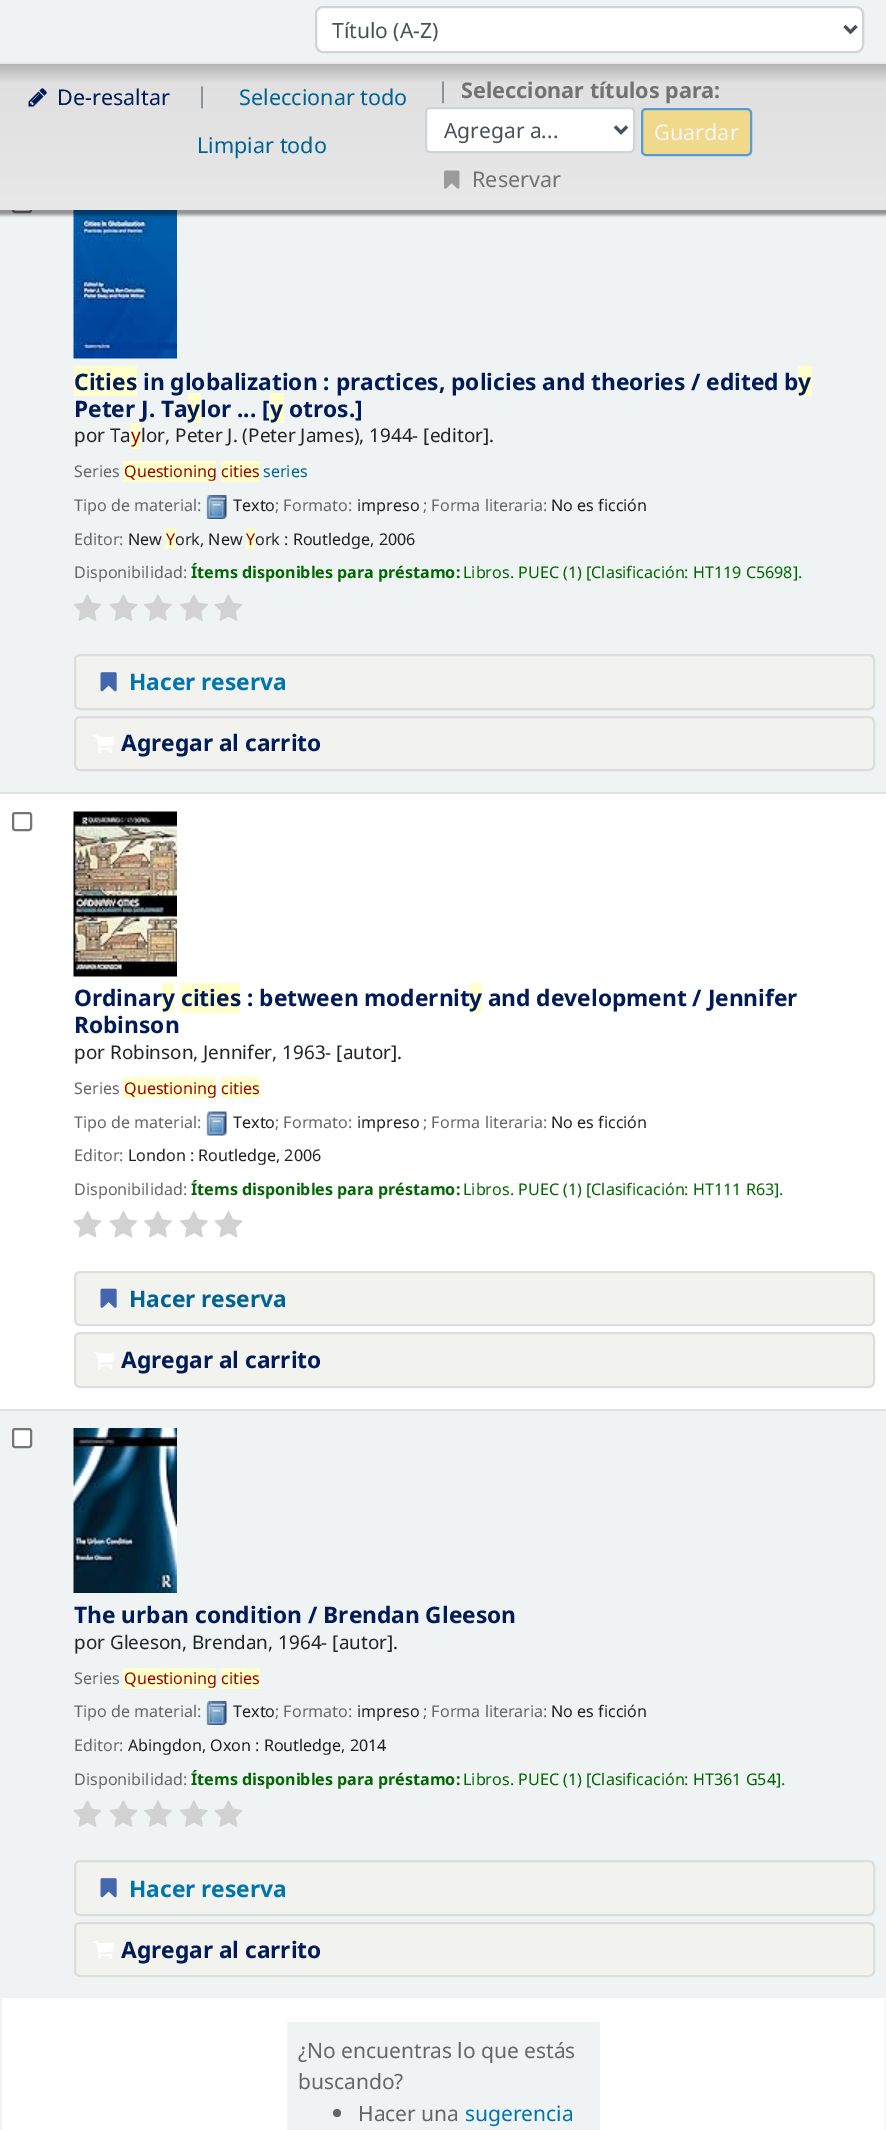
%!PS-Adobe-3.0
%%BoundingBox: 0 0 886 2130
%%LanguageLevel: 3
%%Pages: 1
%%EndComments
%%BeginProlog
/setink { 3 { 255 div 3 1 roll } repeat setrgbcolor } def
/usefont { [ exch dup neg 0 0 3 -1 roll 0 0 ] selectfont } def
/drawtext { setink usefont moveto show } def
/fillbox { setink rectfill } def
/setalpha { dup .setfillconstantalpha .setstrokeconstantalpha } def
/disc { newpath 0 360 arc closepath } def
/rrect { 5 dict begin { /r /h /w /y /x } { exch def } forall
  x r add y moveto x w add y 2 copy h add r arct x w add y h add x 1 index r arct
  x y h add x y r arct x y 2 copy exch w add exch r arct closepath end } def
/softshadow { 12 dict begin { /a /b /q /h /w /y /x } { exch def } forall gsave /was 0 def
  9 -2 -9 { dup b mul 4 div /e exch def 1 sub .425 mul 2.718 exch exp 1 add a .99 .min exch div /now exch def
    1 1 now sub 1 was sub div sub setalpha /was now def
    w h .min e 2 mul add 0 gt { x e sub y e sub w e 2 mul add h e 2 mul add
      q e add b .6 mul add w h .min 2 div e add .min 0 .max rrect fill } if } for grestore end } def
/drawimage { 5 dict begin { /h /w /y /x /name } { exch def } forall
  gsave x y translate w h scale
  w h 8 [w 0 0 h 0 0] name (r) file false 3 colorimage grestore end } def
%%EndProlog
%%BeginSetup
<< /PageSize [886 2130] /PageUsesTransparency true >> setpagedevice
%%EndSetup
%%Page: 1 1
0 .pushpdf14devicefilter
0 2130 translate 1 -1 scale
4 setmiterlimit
0 0 886 2130 255 255 255 fillbox
240 243 243 setink
2 setlinewidth
1 -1 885 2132 rectstroke
2 210 883 582 240 243 243 fillbox
255 255 255 setink
13 195 18 17 2 rrect gsave fill grestore
118 118 118 setink
stroke
(assets/img3.rgb) 73 210 104 149 drawimage
0 0 0 setink
-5 5 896 210 0 1.5 0.4 softshadow
0 0 886 62 240 243 243 fillbox
255 255 255 setink
316 7 547 45 7 rrect gsave fill grestore
206 212 218 setink
stroke
73 80 87 setink
3 setlinewidth
844.5 26 moveto 850.5 32 lineto 856.5 26 lineto stroke
(Título \(A-Z\)) 332 38 /NotoSans-Regular 21 73 80 87 drawtext
gsave 0 64 moveto 886 64 lineto 886 210 lineto 0 210 lineto closepath clip newpath
<< /ShadingType 2 /ColorSpace /DeviceRGB /Coords [443 63 443 210] /Extend [true true] /Function << /FunctionType 3 /Domain [0 1] /Functions [<< /FunctionType 2 /Domain [0 1] /C0 [0.698 0.698 0.698] /C1 [0.878 0.878 0.878] /N 1 >> << /FunctionType 2 /Domain [0 1] /C0 [0.878 0.878 0.878] /C1 [0.91 0.91 0.91] /N 1 >>] /Bounds [0.14] /Encode [0 1 0 1] >> >> shfill grestore
0 62 886 2 232 232 232 fillbox
(assets/img1.rgb) 28 88 19 19 drawimage
(De-resaltar) 57 105 /NotoSans-Regular 21.6 0 27 88 drawtext
(|) 196 103 /NotoSans-Regular 21.6 108 117 125 drawtext
(Seleccionar todo) 239 105 /NotoSans-Regular 21.6 0 99 148 drawtext
(Limpiar todo) 197 153 /NotoSans-Regular 21.6 0 99 148 drawtext
(|) 437 98 /NotoSans-Regular 21.6 108 117 125 drawtext
(Seleccionar títulos para:) 461 98 /NotoSans-Bold 21.6 114 114 114 drawtext
255 255 255 setink
426 108 208 44 4 rrect gsave fill grestore
206 212 218 setink
2 setlinewidth
stroke
73 80 87 setink
3 setlinewidth
615 126.5 moveto 621 132.5 lineto 627 126.5 lineto stroke
(Agregar a...) 444 138 /NotoSans-Regular 21 73 80 87 drawtext
0.65 setalpha
255 255 255 setink
641 108 111 48 5 rrect fill
237 202 80 setink
641 108 111 48 5 rrect fill
0 123 255 setink
2 setlinewidth
642 109 109 46 4 rrect stroke
1 setalpha
(Guardar) 654 140 /NotoSans-Regular 21.6 245 245 245 drawtext
(assets/img2.rgb) 444 170 16 19 drawimage
(Reservar) 472 187 /NotoSans-Regular 21.6 114 114 114 drawtext
0 794 886 615 255 255 255 fillbox
74 366 63 30 255 255 204 fillbox
(Cities in globalization : practices, policies and theories /) 74 390 /NotoSans-Bold 22.7 0 27 88 drawtext
(edited b) 706 390 /NotoSans-Bold 22.7 0 27 88 drawtext
798 366 14 30 255 255 204 fillbox
(y) 798 390 /NotoSans-Bold 22.7 0 27 88 drawtext
(Peter J. Ta) 74 417 /NotoSans-Bold 22.7 0 27 88 drawtext
188 393 13 30 255 255 204 fillbox
(ylor ... [) 187 417 /NotoSans-Bold 22.7 0 27 88 drawtext
270 393 14 30 255 255 204 fillbox
(y otros.]) 270 417 /NotoSans-Bold 22.7 0 27 88 drawtext
(por Ta) 74 442 /NotoSans-Regular 18.9 33 37 41 drawtext
131 423 10 26 255 255 204 fillbox
(y) 131 442 /NotoSans-Regular 18.9 153 0 0 drawtext
(lor, Peter J. \(Peter James\), 1944- [editor].) 141 442 /NotoSans-Regular 18.9 33 37 41 drawtext
(Series) 74 477 /NotoSans-Regular 16.1 102 102 102 drawtext
123 461 93 21 255 255 204 fillbox
(Questioning) 124 477 /NotoSans-Regular 16.1 153 0 0 drawtext
221 461 39 21 255 255 204 fillbox
(cities) 221 477 /NotoSans-Regular 16.1 153 0 0 drawtext
(series) 263 477 /NotoSans-Regular 16.1 0 99 148 drawtext
(Tipo de material:) 74 511 /NotoSans-Regular 16.1 102 102 102 drawtext
(assets/img4.rgb) 206 495 21 24 drawimage
(Texto) 233 511 /NotoSans-Regular 16.1 32 32 32 drawtext
(; Formato:) 275 511 /NotoSans-Regular 16.1 102 102 102 drawtext
(impreso) 357 511 /NotoSans-Regular 16.1 32 32 32 drawtext
(; Forma literaria:) 423 511 /NotoSans-Regular 16.1 102 102 102 drawtext
(No es ficción) 551 511 /NotoSans-Regular 16.1 32 32 32 drawtext
(Editor:) 74 545 /NotoSans-Regular 16.1 102 102 102 drawtext
(New) 128 545 /NotoSans-Regular 16.1 32 32 32 drawtext
165 528 11 21 255 255 204 fillbox
(Y) 166 545 /NotoSans-Regular 16.1 153 0 0 drawtext
(ork, New) 175 545 /NotoSans-Regular 16.1 32 32 32 drawtext
246 528 9 21 255 255 204 fillbox
(Y) 246 545 /NotoSans-Regular 16.1 153 0 0 drawtext
(ork : Routledge, 2006) 255 545 /NotoSans-Regular 16.1 32 32 32 drawtext
(Disponibilidad:) 74 578 /NotoSans-Regular 16.1 102 102 102 drawtext
(Ítems disponibles para préstamo:) 191 578 /NotoSans-Bold 16.1 0 102 0 drawtext
(Libros. PUEC \(1\) [Clasificación: HT119 C5698].) 463 578 /NotoSans-Regular 16.1 0 102 0 drawtext
(assets/img5.rgb) 73 594 29 27 drawimage
(assets/img5.rgb) 109 594 29 27 drawimage
(assets/img6.rgb) 144 594 28 27 drawimage
(assets/img6.rgb) 180 594 28 27 drawimage
(assets/img5.rgb) 214 594 29 27 drawimage
242 242 239 setink
75 655 799 54 5 rrect gsave fill grestore
221 221 221 setink
stroke
(assets/img7.rgb) 100 672 17 20 drawimage
(Hacer reserva) 129 690 /NotoSans-Bold 22.7 0 116 173 drawtext
242 242 239 setink
75 717 799 53 5 rrect gsave fill grestore
221 221 221 setink
stroke
(assets/img8.rgb) 93 735 21 18 drawimage
(Agregar al carrito) 121 751 /NotoSans-Bold 22.7 0 27 88 drawtext
118 118 118 setink
13 813 18 17 2 rrect stroke
0 792 886 2 222 226 230 fillbox
(assets/img9.rgb) 73 811 104 166 drawimage
(Ordinar) 74 1006 /NotoSans-Bold 22.7 0 27 88 drawtext
162 983 12 30 255 255 204 fillbox
(y) 162 1006 /NotoSans-Bold 22.7 0 27 88 drawtext
180 983 60 30 255 255 204 fillbox
(cities : between modernit) 181 1006 /NotoSans-Bold 22.7 0 27 88 drawtext
470 983 12 30 255 255 204 fillbox
(y and development / Jennifer) 469 1006 /NotoSans-Bold 22.7 0 27 88 drawtext
(Robinson) 74 1033 /NotoSans-Bold 22.7 0 27 88 drawtext
(por Robinson, Jennifer, 1963- [autor].) 74 1059 /NotoSans-Regular 18.9 33 37 41 drawtext
(Series) 74 1094 /NotoSans-Regular 16.1 102 102 102 drawtext
123 1077 93 21 255 255 204 fillbox
(Questioning) 124 1094 /NotoSans-Regular 16.1 153 0 0 drawtext
221 1077 39 21 255 255 204 fillbox
(cities) 221 1094 /NotoSans-Regular 16.1 153 0 0 drawtext
(Tipo de material:) 74 1128 /NotoSans-Regular 16.1 102 102 102 drawtext
(assets/img10.rgb) 206 1111 21 25 drawimage
(Texto) 233 1128 /NotoSans-Regular 16.1 32 32 32 drawtext
(; Formato:) 275 1128 /NotoSans-Regular 16.1 102 102 102 drawtext
(impreso) 357 1128 /NotoSans-Regular 16.1 32 32 32 drawtext
(; Forma literaria:) 423 1128 /NotoSans-Regular 16.1 102 102 102 drawtext
(No es ficción) 551 1128 /NotoSans-Regular 16.1 32 32 32 drawtext
(Editor:) 74 1161 /NotoSans-Regular 16.1 102 102 102 drawtext
(London : Routledge, 2006) 128 1161 /NotoSans-Regular 16.1 32 32 32 drawtext
(Disponibilidad:) 74 1195 /NotoSans-Regular 16.1 102 102 102 drawtext
(Ítems disponibles para préstamo:) 191 1195 /NotoSans-Bold 16.1 0 102 0 drawtext
(Libros. PUEC \(1\) [Clasificación: HT111 R63].) 463 1195 /NotoSans-Regular 16.1 0 102 0 drawtext
(assets/img11.rgb) 73 1211 29 27 drawimage
(assets/img11.rgb) 109 1211 29 27 drawimage
(assets/img12.rgb) 144 1211 28 27 drawimage
(assets/img12.rgb) 180 1211 28 27 drawimage
(assets/img11.rgb) 214 1211 29 27 drawimage
242 242 239 setink
75 1272 799 53 5 rrect gsave fill grestore
221 221 221 setink
stroke
(assets/img13.rgb) 100 1288 17 20 drawimage
(Hacer reserva) 129 1307 /NotoSans-Bold 22.7 0 99 148 drawtext
242 242 239 setink
75 1333 799 54 5 rrect gsave fill grestore
221 221 221 setink
stroke
(assets/img14.rgb) 93 1352 21 18 drawimage
(Agregar al carrito) 121 1368 /NotoSans-Bold 22.7 0 27 88 drawtext
2 1411 883 587 240 243 243 fillbox
255 255 255 setink
13 1429 18 18 2 rrect gsave fill grestore
118 118 118 setink
stroke
0 1409 886 2 222 226 230 fillbox
(assets/img15.rgb) 73 1428 104 165 drawimage
(The urban condition / Brendan Gleeson) 74 1623 /NotoSans-Bold 22.7 0 27 88 drawtext
(por Gleeson, Brendan, 1964- [autor].) 74 1649 /NotoSans-Regular 18.9 33 37 41 drawtext
(Series) 74 1684 /NotoSans-Regular 16.1 102 102 102 drawtext
123 1668 93 21 255 255 204 fillbox
(Questioning) 124 1684 /NotoSans-Regular 16.1 153 0 0 drawtext
221 1668 39 21 255 255 204 fillbox
(cities) 221 1684 /NotoSans-Regular 16.1 153 0 0 drawtext
(Tipo de material:) 74 1717 /NotoSans-Regular 16.1 102 102 102 drawtext
(assets/img4.rgb) 206 1701 21 24 drawimage
(Texto) 233 1717 /NotoSans-Regular 16.1 32 32 32 drawtext
(; Formato:) 275 1717 /NotoSans-Regular 16.1 102 102 102 drawtext
(impreso) 357 1717 /NotoSans-Regular 16.1 32 32 32 drawtext
(; Forma literaria:) 423 1717 /NotoSans-Regular 16.1 102 102 102 drawtext
(No es ficción) 551 1717 /NotoSans-Regular 16.1 32 32 32 drawtext
(Editor:) 74 1751 /NotoSans-Regular 16.1 102 102 102 drawtext
(Abingdon, Oxon : Routledge, 2014) 128 1751 /NotoSans-Regular 16.1 32 32 32 drawtext
(Disponibilidad:) 74 1785 /NotoSans-Regular 16.1 102 102 102 drawtext
(Ítems disponibles para préstamo:) 191 1785 /NotoSans-Bold 16.1 0 102 0 drawtext
(Libros. PUEC \(1\) [Clasificación: HT361 G54].) 463 1785 /NotoSans-Regular 16.1 0 102 0 drawtext
(assets/img5.rgb) 73 1800 29 27 drawimage
(assets/img5.rgb) 109 1800 29 27 drawimage
(assets/img6.rgb) 144 1800 28 27 drawimage
(assets/img6.rgb) 180 1800 28 27 drawimage
(assets/img5.rgb) 214 1800 29 27 drawimage
242 242 239 setink
75 1861 799 54 5 rrect gsave fill grestore
221 221 221 setink
stroke
(assets/img7.rgb) 100 1878 17 20 drawimage
(Hacer reserva) 129 1897 /NotoSans-Bold 22.7 0 116 173 drawtext
242 242 239 setink
75 1923 799 53 5 rrect gsave fill grestore
221 221 221 setink
stroke
(assets/img8.rgb) 93 1941 21 18 drawimage
(Agregar al carrito) 121 1958 /NotoSans-Bold 22.7 0 27 88 drawtext
287 2022 313 108 240 243 243 fillbox
(¿No encuentras lo que estás) 298 2058 /NotoSans-Regular 21 102 102 102 drawtext
(buscando?) 298 2089 /NotoSans-Regular 21 102 102 102 drawtext
337 2113 4 disc fill
(Hacer una) 358 2121 /NotoSans-Regular 21 102 102 102 drawtext
(sugerencia) 465 2121 /NotoSans-Regular 21 0 116 173 drawtext
.poppdf14devicefilter showpage
%%EOF
